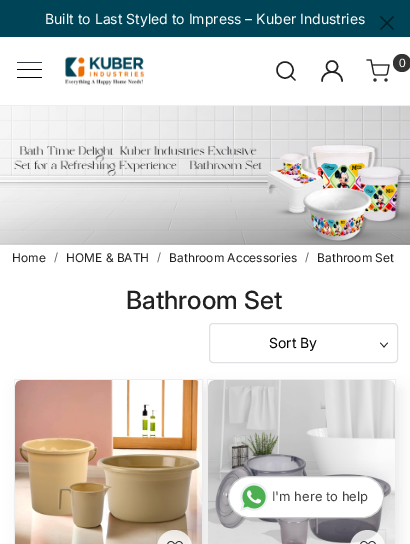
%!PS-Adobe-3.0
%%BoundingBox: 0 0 410 544
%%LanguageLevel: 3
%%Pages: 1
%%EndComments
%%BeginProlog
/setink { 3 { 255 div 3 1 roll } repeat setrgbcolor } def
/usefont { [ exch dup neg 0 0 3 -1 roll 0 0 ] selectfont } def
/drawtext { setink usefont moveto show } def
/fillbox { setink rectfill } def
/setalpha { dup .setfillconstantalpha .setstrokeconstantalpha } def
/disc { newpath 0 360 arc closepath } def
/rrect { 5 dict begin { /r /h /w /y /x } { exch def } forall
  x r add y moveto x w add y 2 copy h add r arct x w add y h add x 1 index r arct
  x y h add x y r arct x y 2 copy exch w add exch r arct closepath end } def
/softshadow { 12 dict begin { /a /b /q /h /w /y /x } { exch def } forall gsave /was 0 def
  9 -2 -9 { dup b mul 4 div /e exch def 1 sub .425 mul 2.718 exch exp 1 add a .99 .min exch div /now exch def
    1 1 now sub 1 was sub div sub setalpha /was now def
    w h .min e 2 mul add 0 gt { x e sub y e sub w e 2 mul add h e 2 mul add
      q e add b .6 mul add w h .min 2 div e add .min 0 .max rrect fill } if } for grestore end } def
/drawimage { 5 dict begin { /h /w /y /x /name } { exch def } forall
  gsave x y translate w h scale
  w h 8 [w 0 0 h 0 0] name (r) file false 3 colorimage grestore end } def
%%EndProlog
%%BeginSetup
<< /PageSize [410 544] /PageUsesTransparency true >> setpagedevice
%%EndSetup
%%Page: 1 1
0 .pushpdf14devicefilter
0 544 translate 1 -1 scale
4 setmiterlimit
0 0 410 544 255 255 255 fillbox
0 0 410 37 0 69 87 fillbox
(Built to Last Styled to Impress – Kuber Industries) 45 24 /Inter-Regular 14 255 255 255 drawtext
(assets/img1.rgb) 380 16 14 14 drawimage
0 105 410 1 238 238 238 fillbox
0 0 0 setink
17 77 25 1 0.5 rrect fill
17 69 25 1 0.5 rrect fill
52 58 64 setink
17 62 25 1 0.5 rrect fill
(assets/img2.rgb) 65 56 80 30 drawimage
33 33 33 setink
1.4 setlinewidth
285 70 8 disc stroke
1 setlinecap
1 setlinejoin
295 80 moveto 290.5 75.5 lineto stroke
1.5 setlinewidth
2 setlinecap
0 setlinejoin
322 81 moveto 322 69 342 69 342 81 curveto stroke
0 setlinecap
332 66.5 5.5 disc stroke
(assets/img3.rgb) 366 59 24 23 drawimage
51 51 51 setink
402 63 9 disc fill
(0) 399 67 /LiberationSans-Regular 12 255 255 255 drawtext
(assets/img4.rgb) 0 106 410 139 drawimage
(Home) 12 262 /Inter-Regular 12 33 33 33 drawtext
(/) 54 261 /Inter-Regular 11 89 92 95 drawtext
(HOME & BATH) 66 262 /Inter-Regular 12 33 33 33 drawtext
(/) 157 261 /Inter-Regular 11 89 92 95 drawtext
(Bathroom Accessories) 169 262 /Inter-Regular 12 33 33 33 drawtext
(/) 305 261 /Inter-Regular 11 89 92 95 drawtext
(Bathroom Set) 317 262 /Inter-Regular 12 33 33 33 drawtext
(Bathroom Set) 126 309 /Inter-Medium 25 33 33 33 drawtext
222 226 230 setink
1 setlinewidth
209.5 323.5 188 39 3.5 rrect stroke
(Sort By) 269 348 /Inter-Regular 14 0 0 0 drawtext
34 34 34 setink
387.5 342.5 moveto 388 343 lineto 384 347.5 lineto 383.5 347 lineto closepath fill
380.5 342.5 moveto 384.5 347 lineto 384 347.5 lineto 380 343 lineto closepath fill
0 0 0 setink
19 389 189 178 0 7.5 0.07 softshadow
238 238 238 setink
14.5 379.5 188 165 rectstroke
(assets/img5.rgb) 15 380 187 164 drawimage
0.06 setalpha
14 63 126 setink
156.5 529.5 36 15 rectstroke
0.8 setalpha
255 255 255 setink
157 530 35 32 17.5 rrect fill
1 setalpha
(assets/img6.rgb) 167 541 16 3 drawimage
0 0 0 setink
212 389 189 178 0 7.5 0.07 softshadow
208 381 187 5 255 255 255 fillbox
238 238 238 setink
207.5 379.5 188 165 rectstroke
(assets/img7.rgb) 208 380 187 164 drawimage
0.06 setalpha
14 63 126 setink
349.5 529.5 36 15 rectstroke
0.8 setalpha
255 255 255 setink
350 530 35 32 17.5 rrect fill
1 setalpha
(assets/img8.rgb) 360 541 16 3 drawimage
32 33 36 setink
228 477 156 42 21 7.5 0.1 softshadow
255 255 255 setink
228.5 476.5 155 41 20.5 rrect gsave fill grestore
204 204 204 setink
stroke
(assets/img9.rgb) 240 483 28 28 drawimage
(I'm here to help) 272 501 /Inter-Regular 13 64 64 64 drawtext
.poppdf14devicefilter showpage
%%EOF
